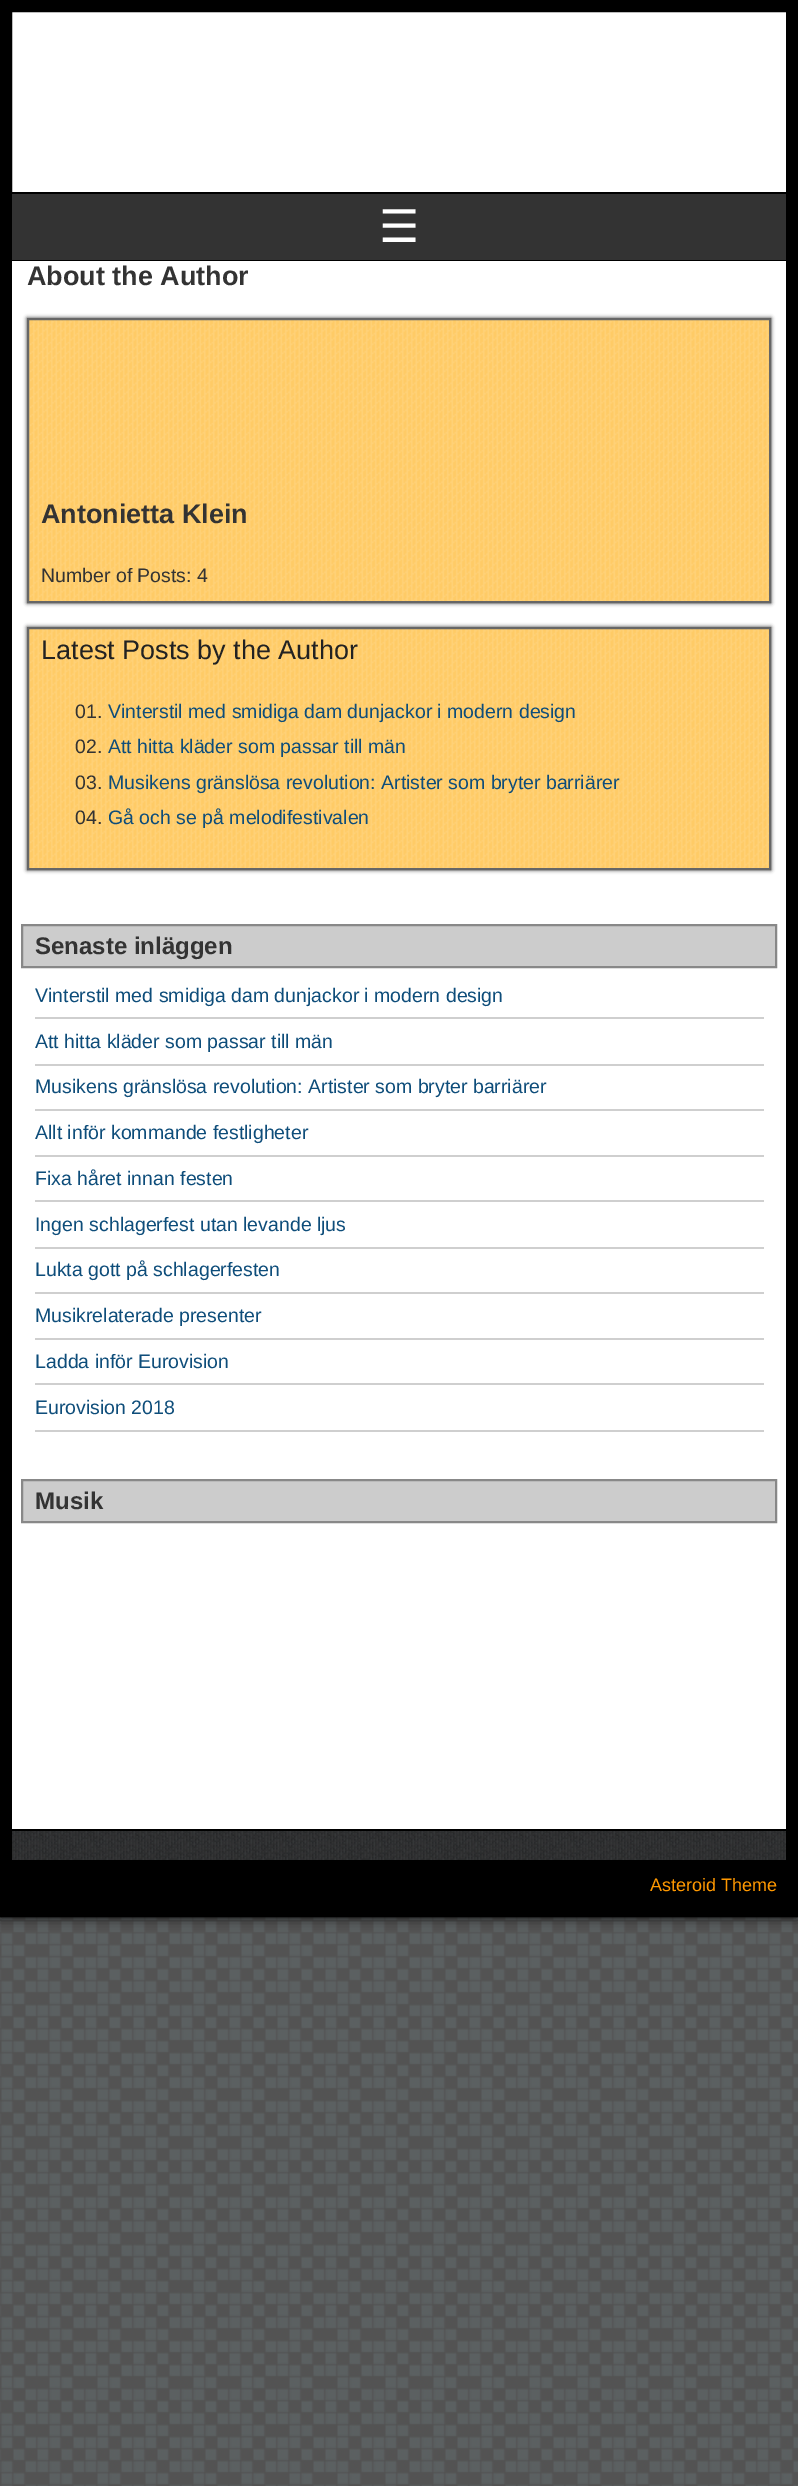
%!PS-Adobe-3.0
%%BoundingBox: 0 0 798 2486
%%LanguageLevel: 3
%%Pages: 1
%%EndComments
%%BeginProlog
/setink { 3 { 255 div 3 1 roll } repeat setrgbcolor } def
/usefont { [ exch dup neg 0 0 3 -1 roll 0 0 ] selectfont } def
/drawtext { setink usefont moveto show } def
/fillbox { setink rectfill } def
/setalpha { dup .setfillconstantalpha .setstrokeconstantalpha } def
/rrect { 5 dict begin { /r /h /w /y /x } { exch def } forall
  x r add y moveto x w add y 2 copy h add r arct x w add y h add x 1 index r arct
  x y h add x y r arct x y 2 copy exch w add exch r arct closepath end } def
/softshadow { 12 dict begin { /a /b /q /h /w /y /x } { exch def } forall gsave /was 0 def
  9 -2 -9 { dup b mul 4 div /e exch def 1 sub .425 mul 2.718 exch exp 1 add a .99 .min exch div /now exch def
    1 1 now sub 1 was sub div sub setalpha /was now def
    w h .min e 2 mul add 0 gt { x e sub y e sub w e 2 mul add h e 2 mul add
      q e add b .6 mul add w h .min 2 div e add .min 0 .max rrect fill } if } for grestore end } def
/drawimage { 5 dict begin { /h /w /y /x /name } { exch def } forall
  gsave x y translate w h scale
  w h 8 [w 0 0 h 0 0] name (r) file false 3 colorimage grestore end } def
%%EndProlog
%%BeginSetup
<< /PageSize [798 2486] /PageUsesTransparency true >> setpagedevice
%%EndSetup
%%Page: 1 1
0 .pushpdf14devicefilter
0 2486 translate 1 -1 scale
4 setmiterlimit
0 0 798 2486 255 255 255 fillbox
(assets/img1.rgb) 0 1917 798 569 drawimage
0 0 0 setink
0 0 798 1917 0 6 1 softshadow
12 12 774 180 255 255 255 fillbox
0 0 0 setink
12 setlinewidth
6 6 786 1905 rectstroke
12 194 774 66 51 51 51 fillbox
12 192 774 2 0 0 0 fillbox
12 260 774 1 0 0 0 fillbox
(☰) 379 242 /DejaVuSans-Regular 45 255 255 255 drawtext
12 261 774 1568 255 255 255 fillbox
(About the Author) 27 285 /LiberationSans-Bold 27 51 51 51 drawtext
27 318 744 285 0 2 1 softshadow
29 320 740 281 255 203 102 fillbox
(assets/img2.rgb) 29 320 740 281 drawimage
102 102 102 setink
2 setlinewidth
28 319 742 283 rectstroke
(Antonietta Klein) 41 523 /LiberationSans-Bold 27 51 51 51 drawtext
(Number of Posts: 4) 41 582 /LiberationSans-Regular 19.5 51 51 51 drawtext
27 627 744 243 0 2 1 softshadow
29 629 740 239 255 203 102 fillbox
(assets/img3.rgb) 29 629 740 239 drawimage
102 102 102 setink
28 628 742 241 rectstroke
(Latest Posts by the Author) 41 659 /LiberationSans-Regular 27 34 34 34 drawtext
(01.) 75 718 /LiberationSans-Regular 19.5 51 51 51 drawtext
(Vinterstil med smidiga dam dunjackor i modern design) 108 718 /LiberationSans-Regular 19.5 14 77 122 drawtext
(02.) 75 753 /LiberationSans-Regular 19.5 51 51 51 drawtext
(Att hitta kläder som passar till män) 108 753 /LiberationSans-Regular 19.5 14 77 122 drawtext
(03.) 75 789 /LiberationSans-Regular 19.5 51 51 51 drawtext
(Musikens gränslösa revolution: Artister som bryter barriärer) 108 789 /LiberationSans-Regular 19.5 14 77 122 drawtext
(04.) 75 824 /LiberationSans-Regular 19.5 51 51 51 drawtext
(Gå och se på melodifestivalen) 108 824 /LiberationSans-Regular 19.5 14 77 122 drawtext
204 204 204 setink
22 925 moveto 776 925 lineto 776 967 lineto 22 967 lineto closepath gsave fill grestore
136 136 136 setink
stroke
(Senaste inläggen) 35 954 /LiberationSans-Bold 24 51 51 51 drawtext
35 1017 729 2 207 207 207 fillbox
(Vinterstil med smidiga dam dunjackor i modern design) 35 1002 /LiberationSans-Regular 19.5 14 77 122 drawtext
35 1064 729 2 207 207 207 fillbox
(Att hitta kläder som passar till män) 35 1048 /LiberationSans-Regular 19.5 14 77 122 drawtext
35 1109 729 2 207 207 207 fillbox
(Musikens gränslösa revolution: Artister som bryter barriärer) 35 1093 /LiberationSans-Regular 19.5 14 77 122 drawtext
35 1155 729 2 207 207 207 fillbox
(Allt inför kommande festligheter) 35 1139 /LiberationSans-Regular 19.5 14 77 122 drawtext
35 1200 729 2 207 207 207 fillbox
(Fixa håret innan festen) 35 1185 /LiberationSans-Regular 19.5 14 77 122 drawtext
35 1247 729 2 207 207 207 fillbox
(Ingen schlagerfest utan levande ljus) 35 1231 /LiberationSans-Regular 19.5 14 77 122 drawtext
35 1292 729 2 207 207 207 fillbox
(Lukta gott på schlagerfesten) 35 1276 /LiberationSans-Regular 19.5 14 77 122 drawtext
35 1338 729 2 207 207 207 fillbox
(Musikrelaterade presenter) 35 1322 /LiberationSans-Regular 19.5 14 77 122 drawtext
35 1383 729 2 207 207 207 fillbox
(Ladda inför Eurovision) 35 1368 /LiberationSans-Regular 19.5 14 77 122 drawtext
35 1430 729 2 207 207 207 fillbox
(Eurovision 2018) 35 1414 /LiberationSans-Regular 19.5 14 77 122 drawtext
204 204 204 setink
22 1480 moveto 776 1480 lineto 776 1522 lineto 22 1522 lineto closepath gsave fill grestore
136 136 136 setink
stroke
(Musik) 35 1509 /LiberationSans-Bold 24 51 51 51 drawtext
(assets/img4.rgb) 12 1831 774 29 drawimage
12 1829 774 2 0 0 0 fillbox
12 1860 774 45 0 0 0 fillbox
(Asteroid Theme) 650 1891 /LiberationSans-Regular 18 255 152 0 drawtext
.poppdf14devicefilter showpage
%%EOF
